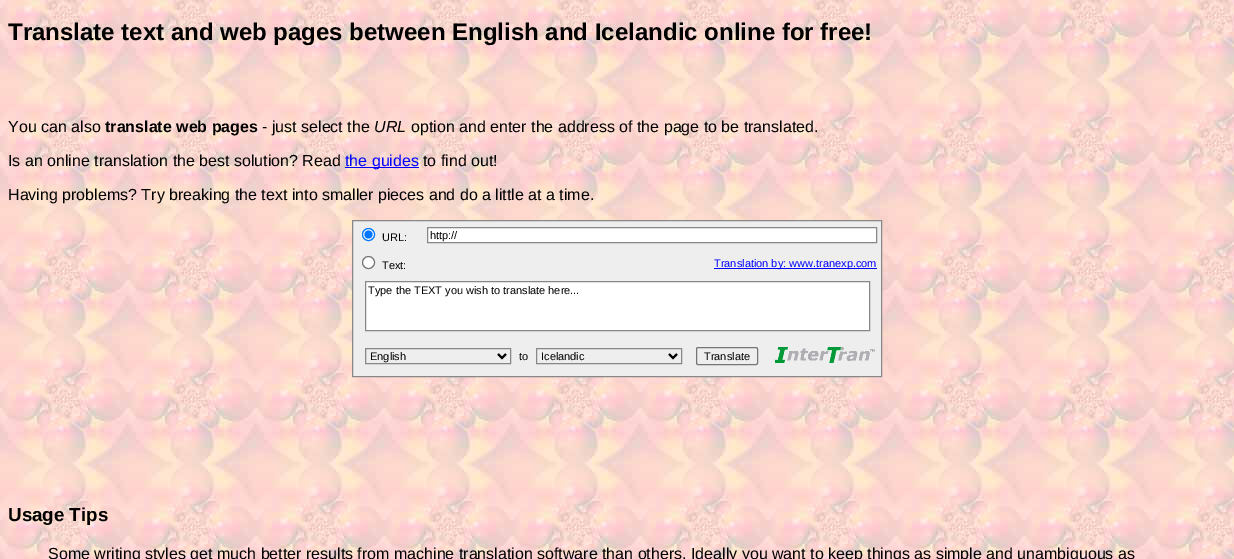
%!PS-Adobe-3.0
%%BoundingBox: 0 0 1234 559
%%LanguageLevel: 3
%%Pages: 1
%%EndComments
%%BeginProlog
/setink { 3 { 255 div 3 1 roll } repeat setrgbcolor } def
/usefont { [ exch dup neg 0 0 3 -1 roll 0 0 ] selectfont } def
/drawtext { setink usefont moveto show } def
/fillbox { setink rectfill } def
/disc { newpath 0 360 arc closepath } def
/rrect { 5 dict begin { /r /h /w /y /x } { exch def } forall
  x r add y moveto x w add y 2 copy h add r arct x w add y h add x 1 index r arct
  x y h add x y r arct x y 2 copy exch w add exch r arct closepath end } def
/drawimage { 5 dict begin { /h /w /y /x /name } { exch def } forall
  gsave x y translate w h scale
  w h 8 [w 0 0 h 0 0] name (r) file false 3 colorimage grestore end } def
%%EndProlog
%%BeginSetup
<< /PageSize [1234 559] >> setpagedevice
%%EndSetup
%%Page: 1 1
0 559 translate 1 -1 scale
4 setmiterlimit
0 0 1234 559 255 255 255 fillbox
(assets/img1.rgb) 0 0 1234 559 drawimage
(Translate text and web pages between English and Icelandic online for free!) 8 40 /LiberationSans-Bold 24 0 0 0 drawtext
(You can also) 8 132 /LiberationSans-Regular 16 0 0 0 drawtext
(translate web pages) 105 132 /LiberationSans-Bold 16 0 0 0 drawtext
(- just select the) 262 132 /LiberationSans-Regular 16 0 0 0 drawtext
(URL) 374 132 /LiberationSans-Italic 16 0 0 0 drawtext
(option and enter the address of the page to be translated.) 411 132 /LiberationSans-Regular 16 0 0 0 drawtext
(Is an online translation the best solution? Read) 8 166 /LiberationSans-Regular 16 0 0 0 drawtext
345 167 74 1 0 0 255 fillbox
(the guides) 345 166 /LiberationSans-Regular 16 0 0 255 drawtext
(to find out!) 423 166 /LiberationSans-Regular 16 0 0 0 drawtext
(Having problems? Try breaking the text into smaller pieces and do a little at a time.) 8 200 /LiberationSans-Regular 16 0 0 0 drawtext
238 238 238 setink
352.5 220.5 moveto 881.5 220.5 lineto 881.5 376.5 lineto 352.5 376.5 lineto closepath gsave fill grestore
136 136 136 setink
stroke
255 255 255 setink
368.5 234.5 6 disc gsave fill grestore
0 117 255 setink
stroke
368.5 234.5 4 disc fill
(URL:) 382 241 /LiberationSans-Regular 11 0 0 0 drawtext
255 255 255 setink
427.5 227.5 moveto 876.5 227.5 lineto 876.5 242.5 lineto 427.5 242.5 lineto closepath gsave fill grestore
136 136 136 setink
stroke
(http://) 430 239 /LiberationSans-Regular 11 0 0 0 drawtext
255 255 255 setink
368.5 262.5 6 disc gsave fill grestore
118 118 118 setink
stroke
(Text:) 382 269 /LiberationSans-Regular 11 0 0 0 drawtext
714 268 163 1 0 0 255 fillbox
(Translation by: www.tranexp.com) 714 267 /LiberationSans-Regular 11 0 0 255 drawtext
255 255 255 setink
365.5 281.5 moveto 869.5 281.5 lineto 869.5 330.5 lineto 365.5 330.5 lineto closepath gsave fill grestore
136 136 136 setink
stroke
(Type the TEXT you wish to translate here...) 368 294 /LiberationSans-Regular 11 0 0 0 drawtext
136 136 136 setink
365.5 348.5 145 15 rectstroke
0 0 0 setink
2 setlinewidth
498 354 moveto 502 358 lineto 506 354 lineto stroke
(English) 370 360 /LiberationSans-Regular 11 0 0 0 drawtext
(to) 519 360 /LiberationSans-Regular 11 0 0 0 drawtext
136 136 136 setink
1 setlinewidth
536.5 348.5 145 15 rectstroke
0 0 0 setink
2 setlinewidth
669 354 moveto 673 358 lineto 677 354 lineto stroke
(Icelandic) 541 360 /LiberationSans-Regular 11 0 0 0 drawtext
118 118 118 setink
1 setlinewidth
696.5 347.5 61 17 1.5 rrect stroke
(Translate) 704 360 /LiberationSans-Regular 11 0 0 0 drawtext
(assets/img2.rgb) 775 347 100 16 drawimage
(Usage Tips) 8 521 /LiberationSans-Bold 18.75 0 0 0 drawtext
(Some writing styles get much better results from machine translation software than others. Ideally you want to keep things as simple and unambiguous as) 48 559 /LiberationSans-Regular 16 0 0 0 drawtext
showpage
%%EOF
